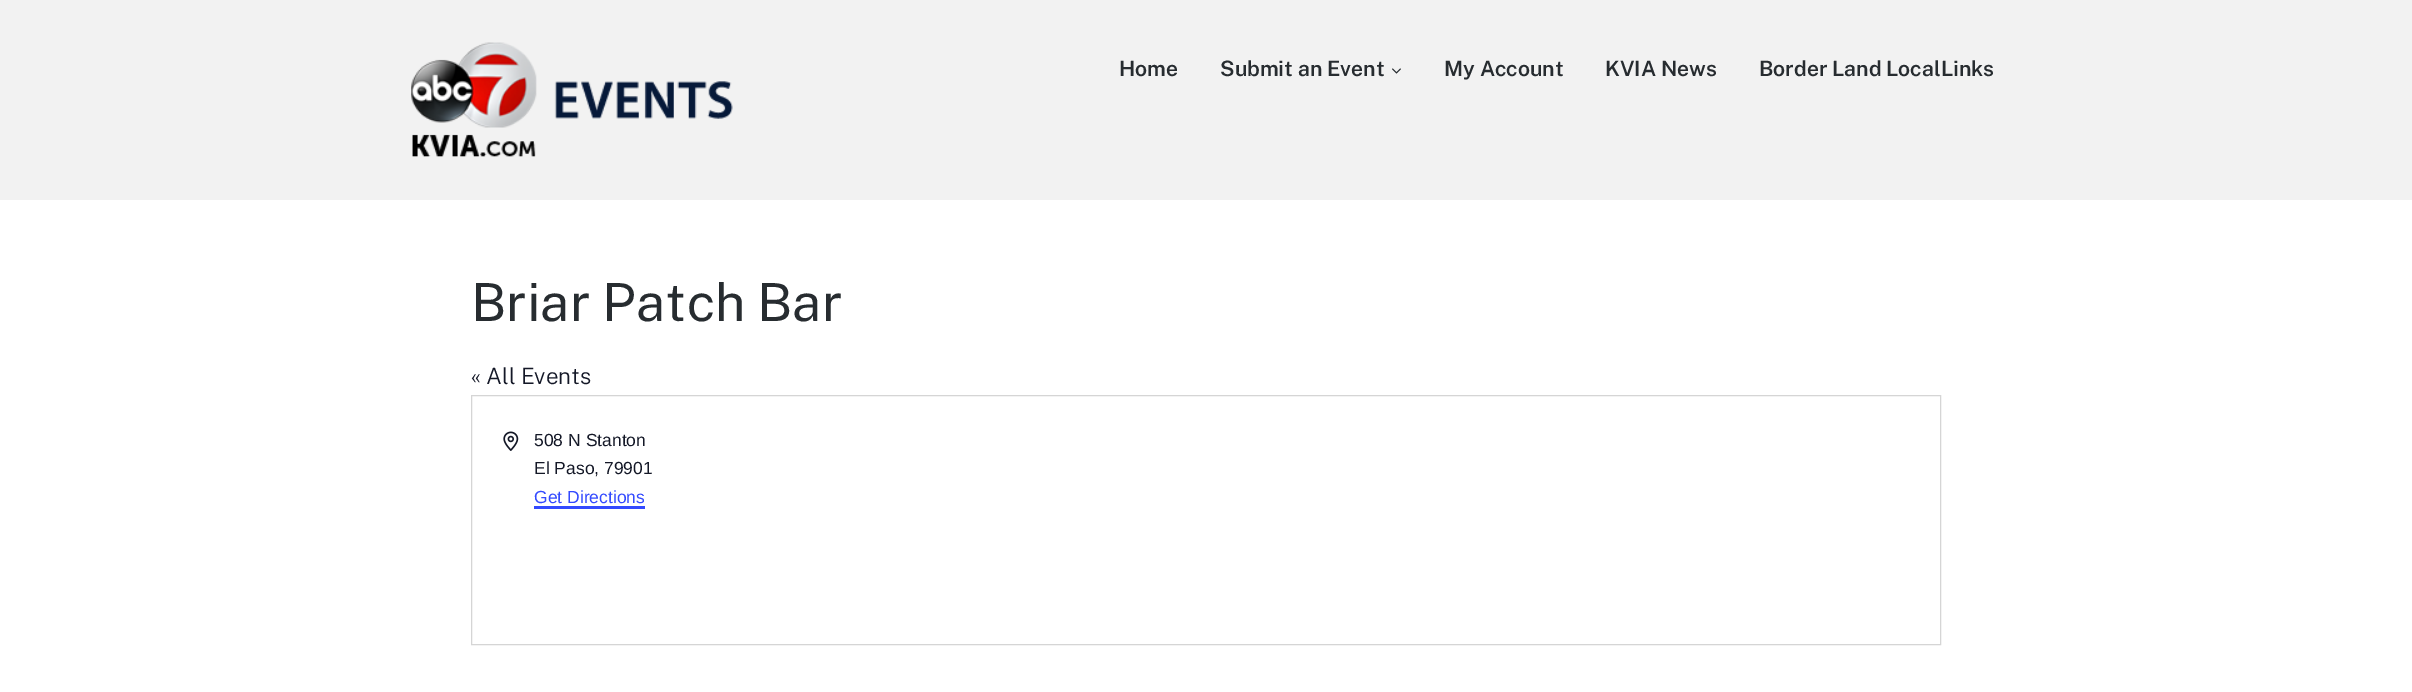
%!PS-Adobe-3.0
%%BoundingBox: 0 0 2412 692
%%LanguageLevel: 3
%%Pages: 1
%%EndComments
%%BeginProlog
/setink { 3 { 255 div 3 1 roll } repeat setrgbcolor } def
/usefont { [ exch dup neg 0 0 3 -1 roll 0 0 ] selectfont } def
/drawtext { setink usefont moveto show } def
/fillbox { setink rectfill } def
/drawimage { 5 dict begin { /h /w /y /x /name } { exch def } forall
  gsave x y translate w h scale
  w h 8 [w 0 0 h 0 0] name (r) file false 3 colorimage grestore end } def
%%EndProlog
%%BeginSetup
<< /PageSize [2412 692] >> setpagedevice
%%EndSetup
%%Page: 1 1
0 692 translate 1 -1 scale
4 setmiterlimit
0 0 2412 692 255 255 255 fillbox
0 0 2412 200 242 242 242 fillbox
(assets/img1.rgb) 411 42 322 115 drawimage
(Home) 1119 76 /PublicSans-SemiBold 21.25 39 44 48 drawtext
(Submit an Event) 1220 76 /PublicSans-SemiBold 21.25 39 44 48 drawtext
(assets/img2.rgb) 1392 68 9 6 drawimage
(My Account) 1444 76 /PublicSans-SemiBold 21.25 39 44 48 drawtext
(KVIA News) 1605 76 /PublicSans-SemiBold 21.25 39 44 48 drawtext
(Border Land LocalLinks) 1759 76 /PublicSans-SemiBold 21.25 39 44 48 drawtext
(Briar Patch Bar) 471 321 /PublicSans-Regular 52.5 39 44 48 drawtext
(« All Events) 471 384 /PublicSans-Light 22.5 20 24 39 drawtext
213 213 213 setink
471.5 395.5 1469 249 rectstroke
(assets/img3.rgb) 503 431 16 20 drawimage
(508 N Stanton) 534 446 /LiberationSans-Regular 17.5 20 24 39 drawtext
(El Paso, 79901) 534 474 /LiberationSans-Regular 17.5 20 24 39 drawtext
(Get Directions) 534 503 /LiberationSans-Regular 17.5 51 74 255 drawtext
534 506 111 3 51 74 255 fillbox
showpage
%%EOF
